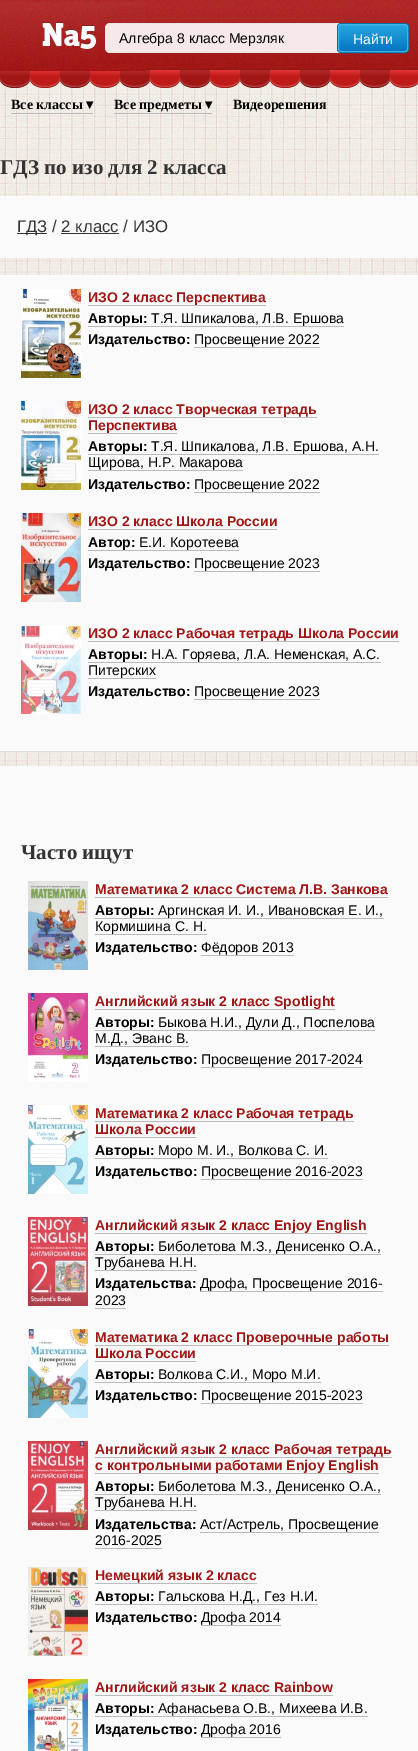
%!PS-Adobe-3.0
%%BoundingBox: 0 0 418 1751
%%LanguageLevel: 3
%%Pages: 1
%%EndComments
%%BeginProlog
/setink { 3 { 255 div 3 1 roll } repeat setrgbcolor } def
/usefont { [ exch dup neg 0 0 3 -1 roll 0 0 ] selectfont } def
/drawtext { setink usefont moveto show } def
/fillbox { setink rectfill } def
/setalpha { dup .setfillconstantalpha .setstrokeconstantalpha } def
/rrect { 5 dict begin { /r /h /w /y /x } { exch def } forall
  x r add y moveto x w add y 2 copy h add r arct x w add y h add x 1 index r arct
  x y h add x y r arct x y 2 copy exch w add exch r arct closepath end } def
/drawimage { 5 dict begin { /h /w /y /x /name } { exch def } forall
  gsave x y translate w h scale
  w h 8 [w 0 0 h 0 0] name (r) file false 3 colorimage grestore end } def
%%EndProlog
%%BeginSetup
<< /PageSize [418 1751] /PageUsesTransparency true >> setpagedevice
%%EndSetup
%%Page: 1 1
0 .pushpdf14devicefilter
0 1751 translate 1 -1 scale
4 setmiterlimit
0 0 418 1751 255 255 255 fillbox
(assets/img1.rgb) 0 80 418 686 drawimage
(assets/img2.rgb) 0 0 418 88 drawimage
(assets/img3.rgb) 0 2 145 69 drawimage
0.9 setalpha
105 23 303 30 5 rrect fill
1 setalpha
108 23 298 1 229 229 229 fillbox
108 52 298 1 229 229 229 fillbox
(Алгебра 8 класс Мерзляк) 119 43 /LiberationSans-Regular 14 0 0 0 drawtext
11 106 161 setink
337.5 23.5 71 29 3.5 rrect stroke
gsave
338 24 70 28 3 rrect clip newpath
gsave 338 25 moveto 408 25 lineto 408 51 lineto 338 51 lineto closepath clip newpath
<< /ShadingType 2 /ColorSpace /DeviceRGB /Coords [373 25 373 51] /Extend [true true] /Function << /FunctionType 2 /Domain [0 1] /C0 [0.149 0.655 0.878] /C1 [0.016 0.463 0.753] /N 1 >> >> shfill grestore
grestore
62 178 228 setink
338.5 24.5 69 27 2.5 rrect stroke
(Найти) 353 44 /LiberationSans-Regular 14 255 255 255 drawtext
11 113 82 1 187 187 187 fillbox
(Все классы) 11 109 /LiberationSerif-Bold 14 0 0 0 drawtext
(▾) 86 109 /DejaVuSans-Bold 14 0 0 0 drawtext
114 113 98 1 187 187 187 fillbox
(Все предметы) 114 109 /LiberationSerif-Bold 14 0 0 0 drawtext
(▾) 205 109 /DejaVuSans-Bold 14 0 0 0 drawtext
(Видеорешения) 233 109 /LiberationSerif-Bold 14 0 0 0 drawtext
(ГДЗ по изо для 2 класса) 0 174 /LiberationSerif-Bold 21 51 51 51 drawtext
0 196 418 62 250 250 250 fillbox
17 233 30 1 51 51 51 fillbox
(ГДЗ / 2 класс / ИЗО) 17 232 /LiberationSans-Regular 16.75 51 51 51 drawtext
61 233 58 1 51 51 51 fillbox
0 275 418 476 250 250 250 fillbox
0 751 418 1 221 221 221 fillbox
(assets/img4.rgb) 21 289 60 89 drawimage
(ИЗО 2 класс Перспектива) 88 302 /LiberationSans-Bold 14 160 23 21 drawtext
88 305 178 1 187 187 187 fillbox
(Авторы:) 88 323 /LiberationSans-Bold 14 0 0 0 drawtext
88 326 256 1 187 187 187 fillbox
(Т.Я. Шпикалова, Л.В. Ершова) 151 323 /LiberationSans-Regular 14 0 0 0 drawtext
(Издательство:) 88 344 /LiberationSans-Bold 14 0 0 0 drawtext
(Просвещение 2022) 194 344 /LiberationSans-Regular 14 0 0 0 drawtext
194 347 126 1 187 187 187 fillbox
(assets/img5.rgb) 21 401 60 89 drawimage
(ИЗО 2 класс Творческая тетрадь) 88 414 /LiberationSans-Bold 14 160 23 21 drawtext
88 417 229 1 187 187 187 fillbox
(Перспектива) 88 430 /LiberationSans-Bold 14 160 23 21 drawtext
88 433 89 1 187 187 187 fillbox
(Авторы:) 88 451 /LiberationSans-Bold 14 0 0 0 drawtext
88 454 291 1 187 187 187 fillbox
(Т.Я. Шпикалова, Л.В. Ершова, А.Н.) 151 451 /LiberationSans-Regular 14 0 0 0 drawtext
(Щирова, Н.Р. Макарова) 88 467 /LiberationSans-Regular 14 0 0 0 drawtext
88 470 155 1 187 187 187 fillbox
(Издательство:) 88 489 /LiberationSans-Bold 14 0 0 0 drawtext
(Просвещение 2022) 194 489 /LiberationSans-Regular 14 0 0 0 drawtext
194 492 126 1 187 187 187 fillbox
(assets/img6.rgb) 21 513 60 89 drawimage
(ИЗО 2 класс Школа России) 88 526 /LiberationSans-Bold 14 160 23 21 drawtext
88 529 189 1 187 187 187 fillbox
(Автор:) 88 547 /LiberationSans-Bold 14 0 0 0 drawtext
88 550 151 1 187 187 187 fillbox
(Е.И. Коротеева) 139 547 /LiberationSans-Regular 14 0 0 0 drawtext
(Издательство:) 88 568 /LiberationSans-Bold 14 0 0 0 drawtext
(Просвещение 2023) 194 568 /LiberationSans-Regular 14 0 0 0 drawtext
194 571 126 1 187 187 187 fillbox
(assets/img7.rgb) 21 625 60 89 drawimage
(ИЗО 2 класс Рабочая тетрадь Школа России) 88 638 /LiberationSans-Bold 14 160 23 21 drawtext
88 641 311 1 187 187 187 fillbox
(Авторы:) 88 659 /LiberationSans-Bold 14 0 0 0 drawtext
88 662 293 1 187 187 187 fillbox
(Н.А. Горяева, Л.А. Неменская, А.С.) 151 659 /LiberationSans-Regular 14 0 0 0 drawtext
(Питерских) 88 675 /LiberationSans-Regular 14 0 0 0 drawtext
88 678 68 1 187 187 187 fillbox
(Издательство:) 88 696 /LiberationSans-Bold 14 0 0 0 drawtext
(Просвещение 2023) 194 696 /LiberationSans-Regular 14 0 0 0 drawtext
194 699 126 1 187 187 187 fillbox
0 766 418 985 250 250 250 fillbox
(Часто ищут) 21 859 /LiberationSerif-Bold 21 51 51 51 drawtext
(assets/img8.rgb) 28 881 60 89 drawimage
(Математика 2 класс Система Л.В. Занкова) 95 894 /LiberationSans-Bold 14 160 23 21 drawtext
95 897 293 1 187 187 187 fillbox
(Авторы:) 95 915 /LiberationSans-Bold 14 0 0 0 drawtext
95 918 289 1 187 187 187 fillbox
(Аргинская И. И., Ивановская Е. И.,) 158 915 /LiberationSans-Regular 14 0 0 0 drawtext
(Кормишина С. Н.) 95 931 /LiberationSans-Regular 14 0 0 0 drawtext
95 934 112 1 187 187 187 fillbox
(Издательство:) 95 952 /LiberationSans-Bold 14 0 0 0 drawtext
(Фёдоров 2013) 201 952 /LiberationSans-Regular 14 0 0 0 drawtext
201 955 93 1 187 187 187 fillbox
(assets/img9.rgb) 28 993 60 89 drawimage
(Английский язык 2 класс Spotlight) 95 1006 /LiberationSans-Bold 14 160 23 21 drawtext
95 1009 240 1 187 187 187 fillbox
(Авторы:) 95 1027 /LiberationSans-Bold 14 0 0 0 drawtext
95 1030 280 1 187 187 187 fillbox
(Быкова Н.И., Дули Д., Поспелова) 158 1027 /LiberationSans-Regular 14 0 0 0 drawtext
(М.Д., Эванс В.) 95 1043 /LiberationSans-Regular 14 0 0 0 drawtext
95 1046 94 1 187 187 187 fillbox
(Издательство:) 95 1064 /LiberationSans-Bold 14 0 0 0 drawtext
(Просвещение 2017-2024) 201 1064 /LiberationSans-Regular 14 0 0 0 drawtext
201 1067 162 1 187 187 187 fillbox
(assets/img10.rgb) 28 1105 60 89 drawimage
(Математика 2 класс Рабочая тетрадь) 95 1118 /LiberationSans-Bold 14 160 23 21 drawtext
95 1121 259 1 187 187 187 fillbox
(Школа России) 95 1134 /LiberationSans-Bold 14 160 23 21 drawtext
95 1137 101 1 187 187 187 fillbox
(Авторы:) 95 1155 /LiberationSans-Bold 14 0 0 0 drawtext
95 1158 233 1 187 187 187 fillbox
(Моро М. И., Волкова С. И.) 158 1155 /LiberationSans-Regular 14 0 0 0 drawtext
(Издательство:) 95 1176 /LiberationSans-Bold 14 0 0 0 drawtext
(Просвещение 2016-2023) 201 1176 /LiberationSans-Regular 14 0 0 0 drawtext
201 1179 162 1 187 187 187 fillbox
(assets/img11.rgb) 28 1217 60 89 drawimage
(Английский язык 2 класс Enjoy English) 95 1230 /LiberationSans-Bold 14 160 23 21 drawtext
95 1233 272 1 187 187 187 fillbox
(Авторы:) 95 1251 /LiberationSans-Bold 14 0 0 0 drawtext
95 1254 286 1 187 187 187 fillbox
(Биболетова М.З., Денисенко О.А.,) 158 1251 /LiberationSans-Regular 14 0 0 0 drawtext
(Трубанева Н.Н.) 95 1267 /LiberationSans-Regular 14 0 0 0 drawtext
95 1270 102 1 187 187 187 fillbox
(Издательства:) 95 1288 /LiberationSans-Bold 14 0 0 0 drawtext
(Дрофа, Просвещение 2016-) 200 1288 /LiberationSans-Regular 14 0 0 0 drawtext
200 1291 183 1 187 187 187 fillbox
(2023) 95 1305 /LiberationSans-Regular 14 0 0 0 drawtext
95 1308 31 1 187 187 187 fillbox
(assets/img12.rgb) 28 1329 60 89 drawimage
(Математика 2 класс Проверочные работы) 95 1342 /LiberationSans-Bold 14 160 23 21 drawtext
95 1345 294 1 187 187 187 fillbox
(Школа России) 95 1358 /LiberationSans-Bold 14 160 23 21 drawtext
95 1361 101 1 187 187 187 fillbox
(Авторы:) 95 1379 /LiberationSans-Bold 14 0 0 0 drawtext
95 1382 226 1 187 187 187 fillbox
(Волкова С.И., Моро М.И.) 158 1379 /LiberationSans-Regular 14 0 0 0 drawtext
(Издательство:) 95 1400 /LiberationSans-Bold 14 0 0 0 drawtext
(Просвещение 2015-2023) 201 1400 /LiberationSans-Regular 14 0 0 0 drawtext
201 1403 162 1 187 187 187 fillbox
(assets/img13.rgb) 28 1441 60 89 drawimage
(Английский язык 2 класс Рабочая тетрадь) 95 1454 /LiberationSans-Bold 14 160 23 21 drawtext
95 1457 297 1 187 187 187 fillbox
(с контрольными работами Enjoy English) 95 1470 /LiberationSans-Bold 14 160 23 21 drawtext
95 1473 284 1 187 187 187 fillbox
(Авторы:) 95 1491 /LiberationSans-Bold 14 0 0 0 drawtext
95 1494 286 1 187 187 187 fillbox
(Биболетова М.З., Денисенко О.А.,) 158 1491 /LiberationSans-Regular 14 0 0 0 drawtext
(Трубанева Н.Н.) 95 1507 /LiberationSans-Regular 14 0 0 0 drawtext
95 1510 102 1 187 187 187 fillbox
(Издательства:) 95 1529 /LiberationSans-Bold 14 0 0 0 drawtext
(Аст/Астрель, Просвещение) 200 1529 /LiberationSans-Regular 14 0 0 0 drawtext
200 1532 179 1 187 187 187 fillbox
(2016-2025) 95 1545 /LiberationSans-Regular 14 0 0 0 drawtext
95 1548 67 1 187 187 187 fillbox
(assets/img14.rgb) 28 1567 60 89 drawimage
(Немецкий язык 2 класс) 95 1580 /LiberationSans-Bold 14 160 23 21 drawtext
95 1583 162 1 187 187 187 fillbox
(Авторы:) 95 1601 /LiberationSans-Bold 14 0 0 0 drawtext
95 1604 223 1 187 187 187 fillbox
(Гальскова Н.Д., Гез Н.И.) 158 1601 /LiberationSans-Regular 14 0 0 0 drawtext
(Издательство:) 95 1622 /LiberationSans-Bold 14 0 0 0 drawtext
(Дрофа 2014) 201 1622 /LiberationSans-Regular 14 0 0 0 drawtext
201 1625 80 1 187 187 187 fillbox
(assets/img15.rgb) 28 1679 60 72 drawimage
(Английский язык 2 класс Rainbow) 95 1692 /LiberationSans-Bold 14 160 23 21 drawtext
95 1695 238 1 187 187 187 fillbox
(Авторы:) 95 1713 /LiberationSans-Bold 14 0 0 0 drawtext
95 1716 273 1 187 187 187 fillbox
(Афанасьева О.В., Михеева И.В.) 158 1713 /LiberationSans-Regular 14 0 0 0 drawtext
(Издательство:) 95 1734 /LiberationSans-Bold 14 0 0 0 drawtext
(Дрофа 2016) 201 1734 /LiberationSans-Regular 14 0 0 0 drawtext
201 1737 80 1 187 187 187 fillbox
.poppdf14devicefilter showpage
%%EOF
